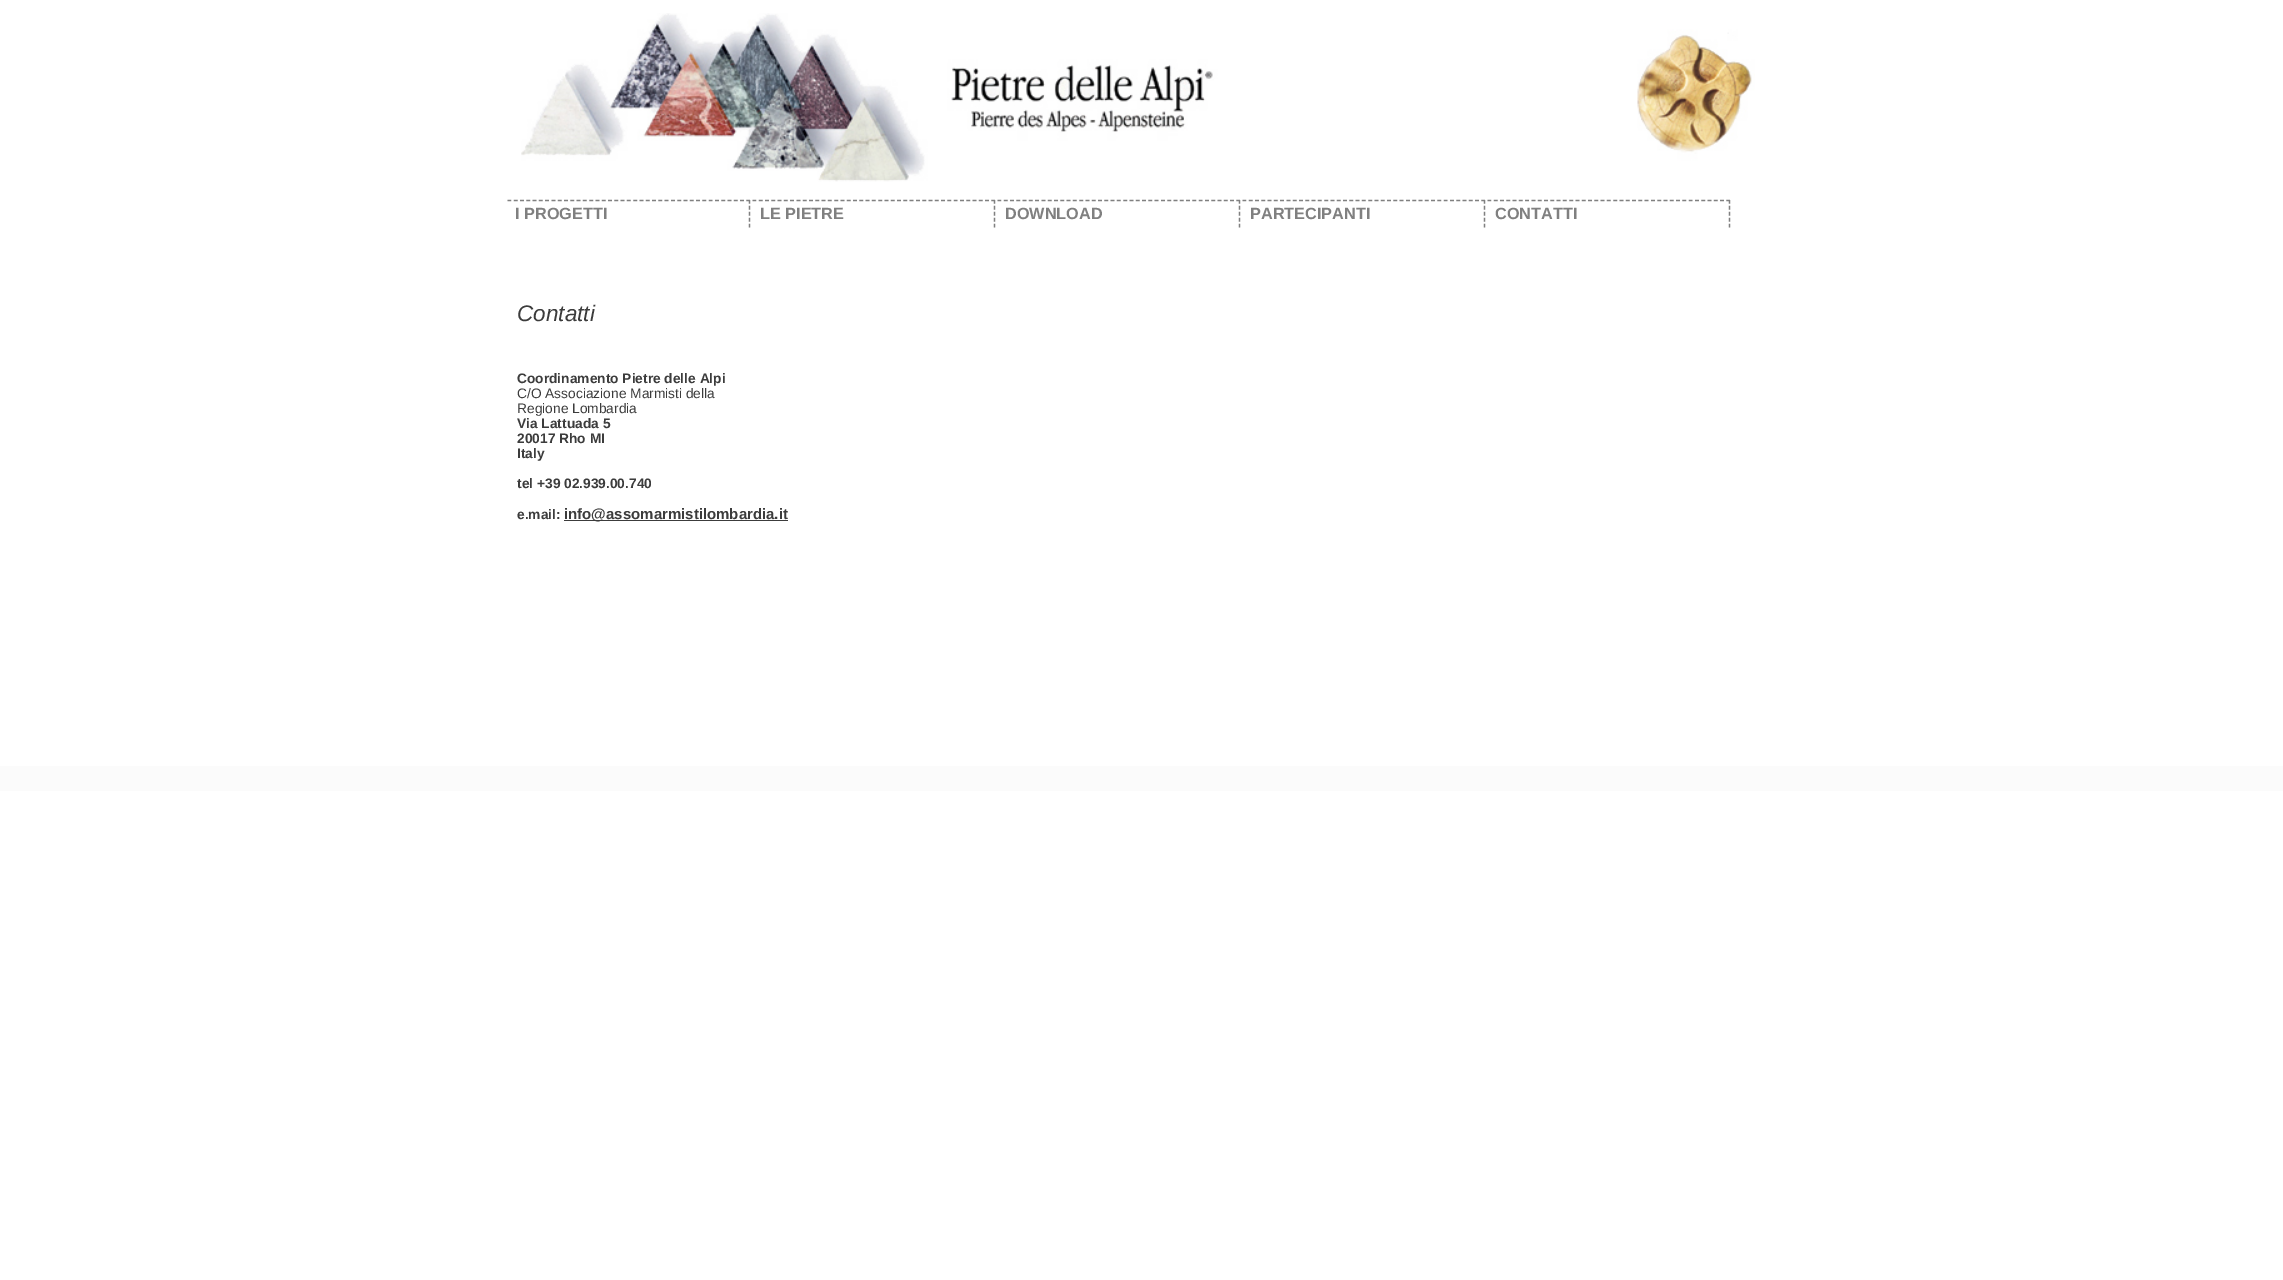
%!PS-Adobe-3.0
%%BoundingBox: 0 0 2283 1280
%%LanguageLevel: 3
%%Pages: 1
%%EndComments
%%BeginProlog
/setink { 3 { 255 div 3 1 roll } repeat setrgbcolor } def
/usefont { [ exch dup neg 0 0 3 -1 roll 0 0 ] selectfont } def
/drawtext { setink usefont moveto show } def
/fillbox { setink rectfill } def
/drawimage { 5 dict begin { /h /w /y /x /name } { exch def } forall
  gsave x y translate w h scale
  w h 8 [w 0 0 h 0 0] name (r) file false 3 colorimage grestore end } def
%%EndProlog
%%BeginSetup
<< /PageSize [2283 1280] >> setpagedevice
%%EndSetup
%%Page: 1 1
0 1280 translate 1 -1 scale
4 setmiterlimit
0 0 2283 1280 255 255 255 fillbox
(assets/img1.rgb) 521 13 1234 169 drawimage
128 128 128 setink
1.2 setlinewidth
[3.75 2.54] 0 setdash
507.5 200.5 moveto 750 200.5 lineto stroke
[3.75 2.19] 0 setdash
749.5 200 moveto 749.5 227.5 lineto stroke
(I PROGETTI) 515 219 /LiberationSans-Bold 16.25 128 128 128 drawtext
[3.75 2.54] 0 setdash
752.5 200.5 moveto 995 200.5 lineto stroke
[3.75 2.19] 0 setdash
994.5 200 moveto 994.5 227.5 lineto stroke
(LE PIETRE) 760 219 /LiberationSans-Bold 16.25 128 128 128 drawtext
[3.75 2.54] 0 setdash
997.5 200.5 moveto 1240 200.5 lineto stroke
[3.75 2.19] 0 setdash
1239.5 200 moveto 1239.5 227.5 lineto stroke
(DOWNLOAD) 1005 219 /LiberationSans-Bold 16.25 128 128 128 drawtext
[3.75 2.54] 0 setdash
1242.5 200.5 moveto 1485 200.5 lineto stroke
[3.75 2.19] 0 setdash
1484.5 200 moveto 1484.5 227.5 lineto stroke
(PARTECIPANTI) 1250 219 /LiberationSans-Bold 16.25 128 128 128 drawtext
[3.75 2.54] 0 setdash
1487.5 200.5 moveto 1730 200.5 lineto stroke
[3.75 2.19] 0 setdash
1729.5 200 moveto 1729.5 227.5 lineto stroke
(CONTATTI) 1495 219 /LiberationSans-Bold 16.25 128 128 128 drawtext
(Contatti) 517 321 /LiberationSans-Italic 22.5 60 60 60 drawtext
(Coordinamento Pietre delle Alpi) 517 383 /LiberationSans-Bold 13.75 60 60 60 drawtext
(C/O Associazione Marmisti della) 517 398 /LiberationSans-Regular 13.75 60 60 60 drawtext
(Regione Lombardia) 517 413 /LiberationSans-Regular 13.75 60 60 60 drawtext
(Via Lattuada 5) 517 428 /LiberationSans-Bold 13.75 60 60 60 drawtext
(20017 Rho MI) 517 443 /LiberationSans-Bold 13.75 60 60 60 drawtext
(Italy) 517 458 /LiberationSans-Bold 13.75 60 60 60 drawtext
(tel +39 02.939.00.740) 517 488 /LiberationSans-Bold 13.75 60 60 60 drawtext
(e.mail:) 517 519 /LiberationSans-Bold 13.75 60 60 60 drawtext
564 520 224 1 60 60 60 fillbox
(info@assomarmistilombardia.it) 564 519 /LiberationSans-Bold 15 60 60 60 drawtext
0 766 2283 25 251 251 251 fillbox
showpage
%%EOF
